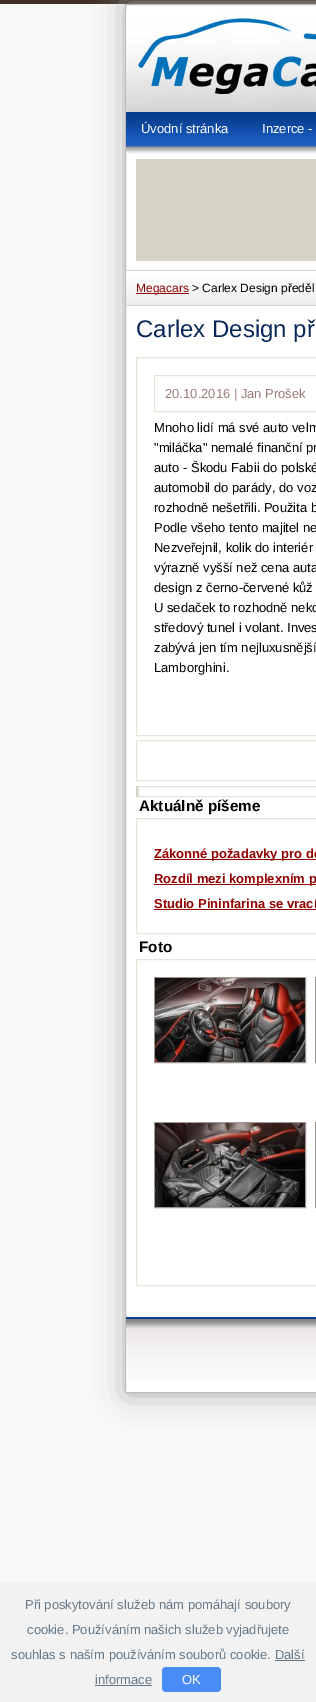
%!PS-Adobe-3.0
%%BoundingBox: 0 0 316 1702
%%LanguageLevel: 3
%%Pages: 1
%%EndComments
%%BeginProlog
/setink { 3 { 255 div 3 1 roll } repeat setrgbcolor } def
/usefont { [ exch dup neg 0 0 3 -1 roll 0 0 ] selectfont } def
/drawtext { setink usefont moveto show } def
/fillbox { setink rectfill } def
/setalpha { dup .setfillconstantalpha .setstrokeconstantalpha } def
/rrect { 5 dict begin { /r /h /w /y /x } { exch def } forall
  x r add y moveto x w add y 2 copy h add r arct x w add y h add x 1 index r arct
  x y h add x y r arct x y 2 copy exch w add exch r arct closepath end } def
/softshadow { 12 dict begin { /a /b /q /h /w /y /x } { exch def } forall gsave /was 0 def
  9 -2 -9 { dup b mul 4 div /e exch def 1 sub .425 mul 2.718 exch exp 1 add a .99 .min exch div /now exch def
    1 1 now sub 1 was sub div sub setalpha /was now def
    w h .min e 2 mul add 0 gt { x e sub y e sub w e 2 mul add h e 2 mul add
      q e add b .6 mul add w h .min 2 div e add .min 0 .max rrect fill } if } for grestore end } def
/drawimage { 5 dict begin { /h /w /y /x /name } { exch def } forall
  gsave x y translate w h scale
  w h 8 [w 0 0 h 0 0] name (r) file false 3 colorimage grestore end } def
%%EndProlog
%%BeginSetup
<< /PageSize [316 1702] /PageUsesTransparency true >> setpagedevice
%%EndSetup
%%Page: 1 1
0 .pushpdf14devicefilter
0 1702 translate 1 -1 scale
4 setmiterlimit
0 0 316 1702 248 248 248 fillbox
0 0 316 4 65 49 38 fillbox
170 170 170 setink
126 5 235 1389 0 15 1 softshadow
255 255 255 setink
125.5 4.5 moveto 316.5 4.5 lineto 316.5 1392.5 lineto 125.5 1392.5 lineto closepath gsave fill grestore
189 189 190 setink
stroke
(assets/img1.rgb) 126 13 190 99 drawimage
(assets/img2.rgb) 126 145 190 9 drawimage
(assets/img3.rgb) 126 112 190 34 drawimage
(Úvodní stránka) 141 133 /LiberationSans-Regular 13 255 255 255 drawtext
(Inzerce -) 262 133 /LiberationSans-Regular 13 255 255 255 drawtext
136 159 180 102 214 210 196 fillbox
(assets/img4.rgb) 126 271 190 34 drawimage
126 270 190 1 216 212 198 fillbox
126 305 190 1 216 212 198 fillbox
136 293 53 1 147 0 1 fillbox
(Megacars) 136 292 /LiberationSans-Regular 12 147 0 1 drawtext
(> Carlex Design předěl) 192 292 /LiberationSans-Regular 12 0 0 0 drawtext
(Carlex Design př) 136 337 /LiberationSans-Regular 24 9 40 88 drawtext
232 228 215 setink
136.5 357.5 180 378 rectstroke
154.5 375.5 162 36 rectstroke
(20.10.2016 | Jan Prošek) 165 398 /LiberationSans-Regular 13 152 123 119 drawtext
(Mnoho lidí má své auto velm) 154 432 /LiberationSans-Regular 13 0 0 0 drawtext
("miláčka" nemalé finanční pr) 154 452 /LiberationSans-Regular 13 0 0 0 drawtext
(auto - Škodu Fabii do polské) 154 472 /LiberationSans-Regular 13 0 0 0 drawtext
(automobil do parády, do voz) 154 492 /LiberationSans-Regular 13 0 0 0 drawtext
(rozhodně nešetřili. Použita b) 154 512 /LiberationSans-Regular 13 0 0 0 drawtext
(Podle všeho tento majitel ne) 154 532 /LiberationSans-Regular 13 0 0 0 drawtext
(Nezveřejnil, kolik do interiér) 154 552 /LiberationSans-Regular 13 0 0 0 drawtext
(výrazně vyšší než cena auta) 154 572 /LiberationSans-Regular 13 0 0 0 drawtext
(design z černo-červené kůž) 154 592 /LiberationSans-Regular 13 0 0 0 drawtext
(U sedaček to rozhodně neko) 154 612 /LiberationSans-Regular 13 0 0 0 drawtext
(středový tunel i volant. Inves) 154 632 /LiberationSans-Regular 13 0 0 0 drawtext
(zabývá jen tím nejluxusnější) 154 652 /LiberationSans-Regular 13 0 0 0 drawtext
(Lamborghini.) 154 672 /LiberationSans-Regular 13 0 0 0 drawtext
232 228 215 setink
136.5 740.5 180 40 rectstroke
136 786 2 11 214 210 196 fillbox
232 228 215 setink
138.5 786.5 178 10 rectstroke
(Aktuálně píšeme) 139 811 /LiberationSans-Bold 15.25 0 0 0 drawtext
232 228 215 setink
136.5 818.5 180 115 rectstroke
154 859 162 1 147 0 1 fillbox
(Zákonné požadavky pro de) 154 858 /LiberationSans-Bold 13 147 0 1 drawtext
154 884 162 1 147 0 1 fillbox
(Rozdíl mezi komplexním p) 154 883 /LiberationSans-Bold 13 147 0 1 drawtext
(Studio Pininfarina se vrací) 154 908 /LiberationSans-Bold 13 147 0 1 drawtext
154 909 162 1 147 0 1 fillbox
(Foto) 139 952 /LiberationSans-Bold 15.25 0 0 0 drawtext
232 228 215 setink
136.5 959.5 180 326 rectstroke
157 150 145 setink
154.5 977.5 151 85 rectstroke
(assets/img5.rgb) 155 978 150 84 drawimage
315.5 977.5 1 85 rectstroke
154.5 1122.5 151 85 rectstroke
(assets/img6.rgb) 155 1123 150 84 drawimage
315.5 1122.5 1 85 rectstroke
(assets/img7.rgb) 126 1319 190 64 drawimage
126 1317 190 2 9 64 147 fillbox
0 1582 316 120 242 242 242 fillbox
(Při poskytování služeb nám pomáhají soubory) 25 1609 /LiberationSans-Regular 13 101 120 136 drawtext
(cookie. Používáním našich služeb vyjadřujete) 27 1634 /LiberationSans-Regular 13 101 120 136 drawtext
(souhlas s naším používáním souborů cookie. Další) 11 1659 /LiberationSans-Regular 13 101 120 136 drawtext
(informace) 95 1684 /LiberationSans-Regular 13 101 120 136 drawtext
275 1660 30 1 101 120 136 fillbox
95 1685 57 1 101 120 136 fillbox
74 140 246 setink
162 1667 59 25 4 rrect fill
(OK) 182 1684 /LiberationSans-Regular 13 255 255 255 drawtext
.poppdf14devicefilter showpage
%%EOF
